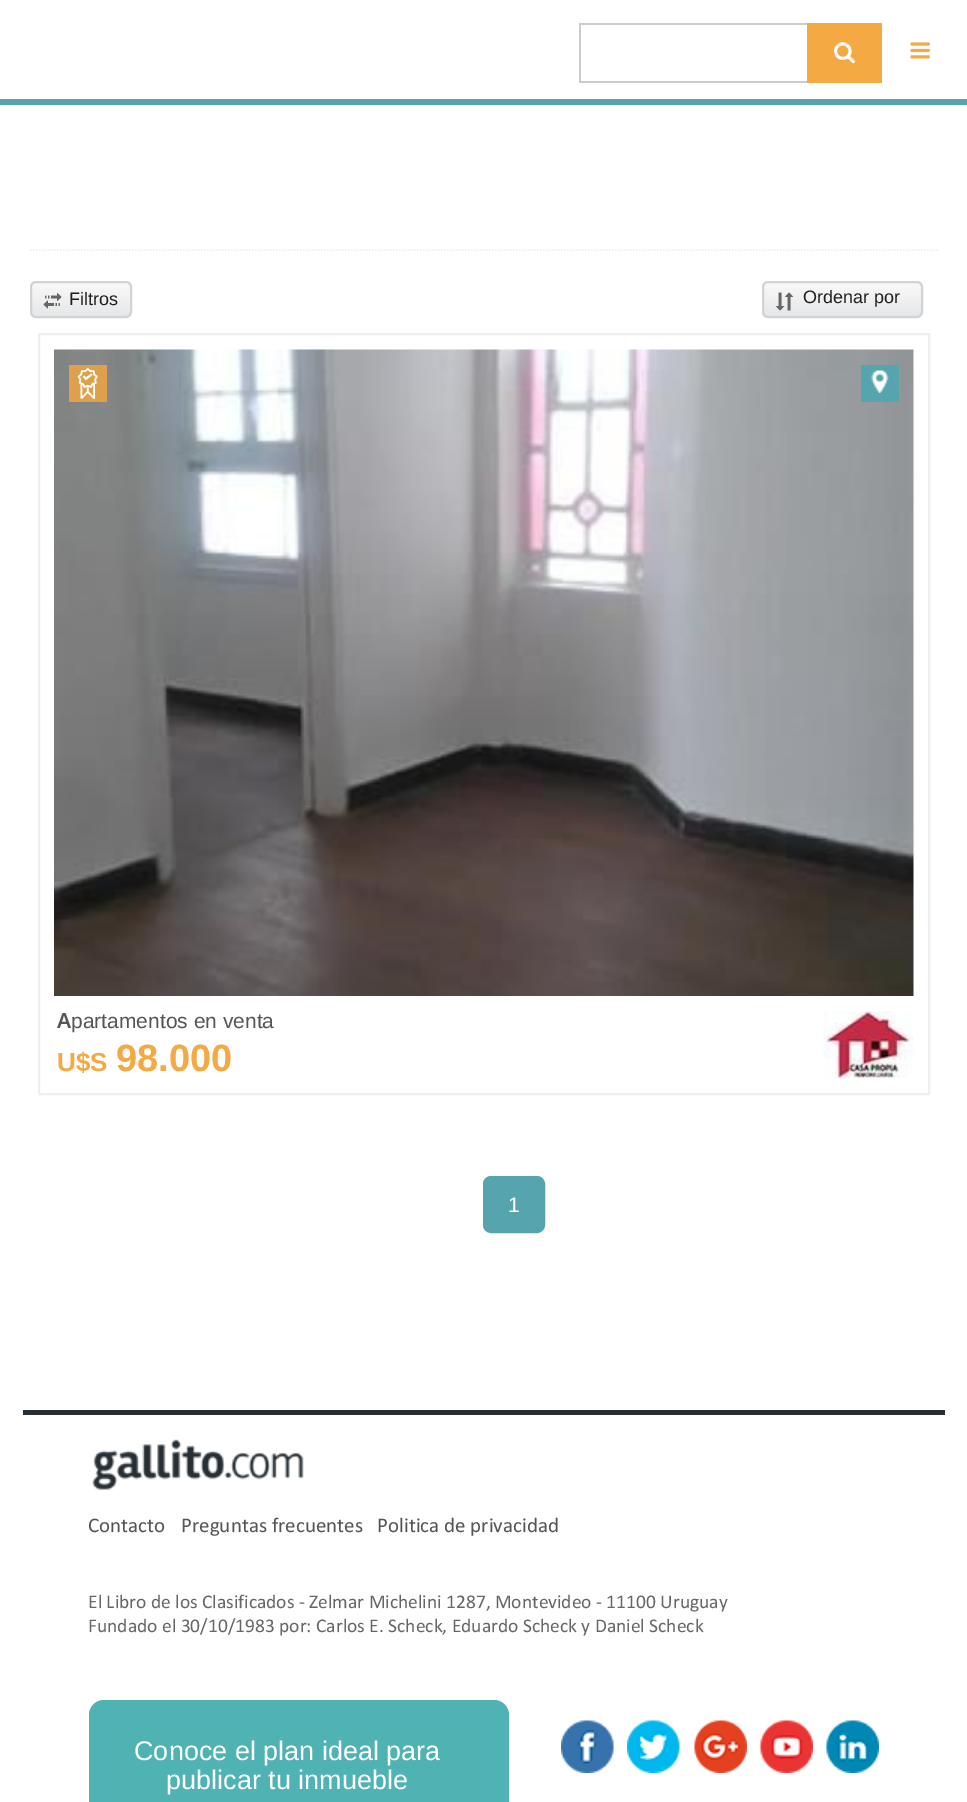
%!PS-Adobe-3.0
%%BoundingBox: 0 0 967 1802
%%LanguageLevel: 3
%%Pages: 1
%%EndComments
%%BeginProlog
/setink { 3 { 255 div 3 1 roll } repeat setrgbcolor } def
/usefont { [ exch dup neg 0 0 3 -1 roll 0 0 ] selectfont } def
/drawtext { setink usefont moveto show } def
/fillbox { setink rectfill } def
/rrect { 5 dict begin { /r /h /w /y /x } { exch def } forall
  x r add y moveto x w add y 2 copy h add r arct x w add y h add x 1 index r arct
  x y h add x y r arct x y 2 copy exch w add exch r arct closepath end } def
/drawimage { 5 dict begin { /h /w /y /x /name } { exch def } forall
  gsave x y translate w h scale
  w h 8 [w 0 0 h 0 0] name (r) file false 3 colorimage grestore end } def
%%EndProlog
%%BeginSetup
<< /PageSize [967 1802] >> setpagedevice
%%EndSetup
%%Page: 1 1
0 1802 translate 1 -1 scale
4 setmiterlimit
0 0 967 1802 255 255 255 fillbox
0 99 967 6 86 165 174 fillbox
579 23 228 2 204 204 204 fillbox
579 81 228 2 204 204 204 fillbox
579 23 2 60 204 204 204 fillbox
807 23 75 60 245 169 66 fillbox
(assets/img1.rgb) 834 42 21 22 drawimage
(assets/img2.rgb) 910 42 20 17 drawimage
239 239 239 setink
1.5 setlinewidth
[1.5 1.5] 0 setdash
30 250 moveto 937.5 250 lineto stroke
gsave 32 282 99 35 5 rrect clip newpath
<< /ShadingType 2 /ColorSpace /DeviceRGB /Coords [81 282 81 317] /Extend [true true] /Function << /FunctionType 2 /Domain [0 1] /C0 [0.976 0.976 0.976] /C1 [0.902 0.906 0.91] /N 1 >> >> shfill grestore
209 211 212 setink
2 setlinewidth
[] 0 setdash
31 282 100 35 5 rrect stroke
(assets/img3.rgb) 43 293 19 16 drawimage
(Filtros) 69 305 /LiberationSans-Regular 18 35 31 32 drawtext
gsave 764 282 157 35 5 rrect clip newpath
<< /ShadingType 2 /ColorSpace /DeviceRGB /Coords [842 282 842 317] /Extend [true true] /Function << /FunctionType 2 /Domain [0 1] /C0 [0.976 0.976 0.976] /C1 [0.902 0.906 0.91] /N 1 >> >> shfill grestore
209 211 212 setink
763 282 159 35 5 rrect stroke
(assets/img4.rgb) 776 292 18 19 drawimage
(Ordenar por) 803 303 /LiberationSans-Regular 18 35 31 32 drawtext
239 239 239 setink
39 334 890 760 rectstroke
(assets/img5.rgb) 54 349 860 647 drawimage
861 365 38 37 86 165 174 fillbox
(assets/img6.rgb) 871 370 18 23 drawimage
(assets/img7.rgb) 69 365 38 37 drawimage
(A) 57 1028 /NotoSans-SemiBold 21 85 85 85 drawtext
(partamentos en venta) 71 1028 /LiberationSans-Regular 21 85 85 85 drawtext
(U$S) 57 1071 /LiberationSans-Bold 26 245 169 66 drawtext
(98.000) 116 1071 /LiberationSans-Bold 38 245 169 66 drawtext
(assets/img8.rgb) 823 1011 91 68 drawimage
86 165 174 setink
484 1177 60 55 7 rrect gsave fill grestore
stroke
(1) 508 1212 /LiberationSans-Regular 21 255 255 255 drawtext
23 1410 922 5 39 47 53 fillbox
(assets/img9.rgb) 92 1439 212 51 drawimage
(Contacto) 88 1532 /Calibri-Regular 21 85 85 85 drawtext
(Preguntas frecuentes) 181 1532 /Calibri-Regular 21 85 85 85 drawtext
(Politica de privacidad) 377 1532 /Calibri-Regular 21 85 85 85 drawtext
(El Libro de los Clasificados - Zelmar Michelini 1287, Montevideo - 11100 Uruguay) 88 1608 /Calibri-Regular 19.5 102 102 102 drawtext
(Fundado el 30/10/1983 por: Carlos E. Scheck, Eduardo Scheck y Daniel Scheck) 88 1632 /Calibri-Regular 19.5 102 102 102 drawtext
79 178 179 setink
89 1700 420 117 15 rrect fill
(Conoce el plan ideal para) 134 1760 /LiberationSans-Regular 27 255 255 255 drawtext
(publicar tu inmueble) 166 1789 /LiberationSans-Regular 27 255 255 255 drawtext
(assets/img10.rgb) 561 1720 53 53 drawimage
(assets/img11.rgb) 627 1720 53 53 drawimage
(assets/img12.rgb) 694 1720 53 53 drawimage
(assets/img13.rgb) 760 1720 53 53 drawimage
(assets/img14.rgb) 826 1720 53 53 drawimage
showpage
%%EOF
